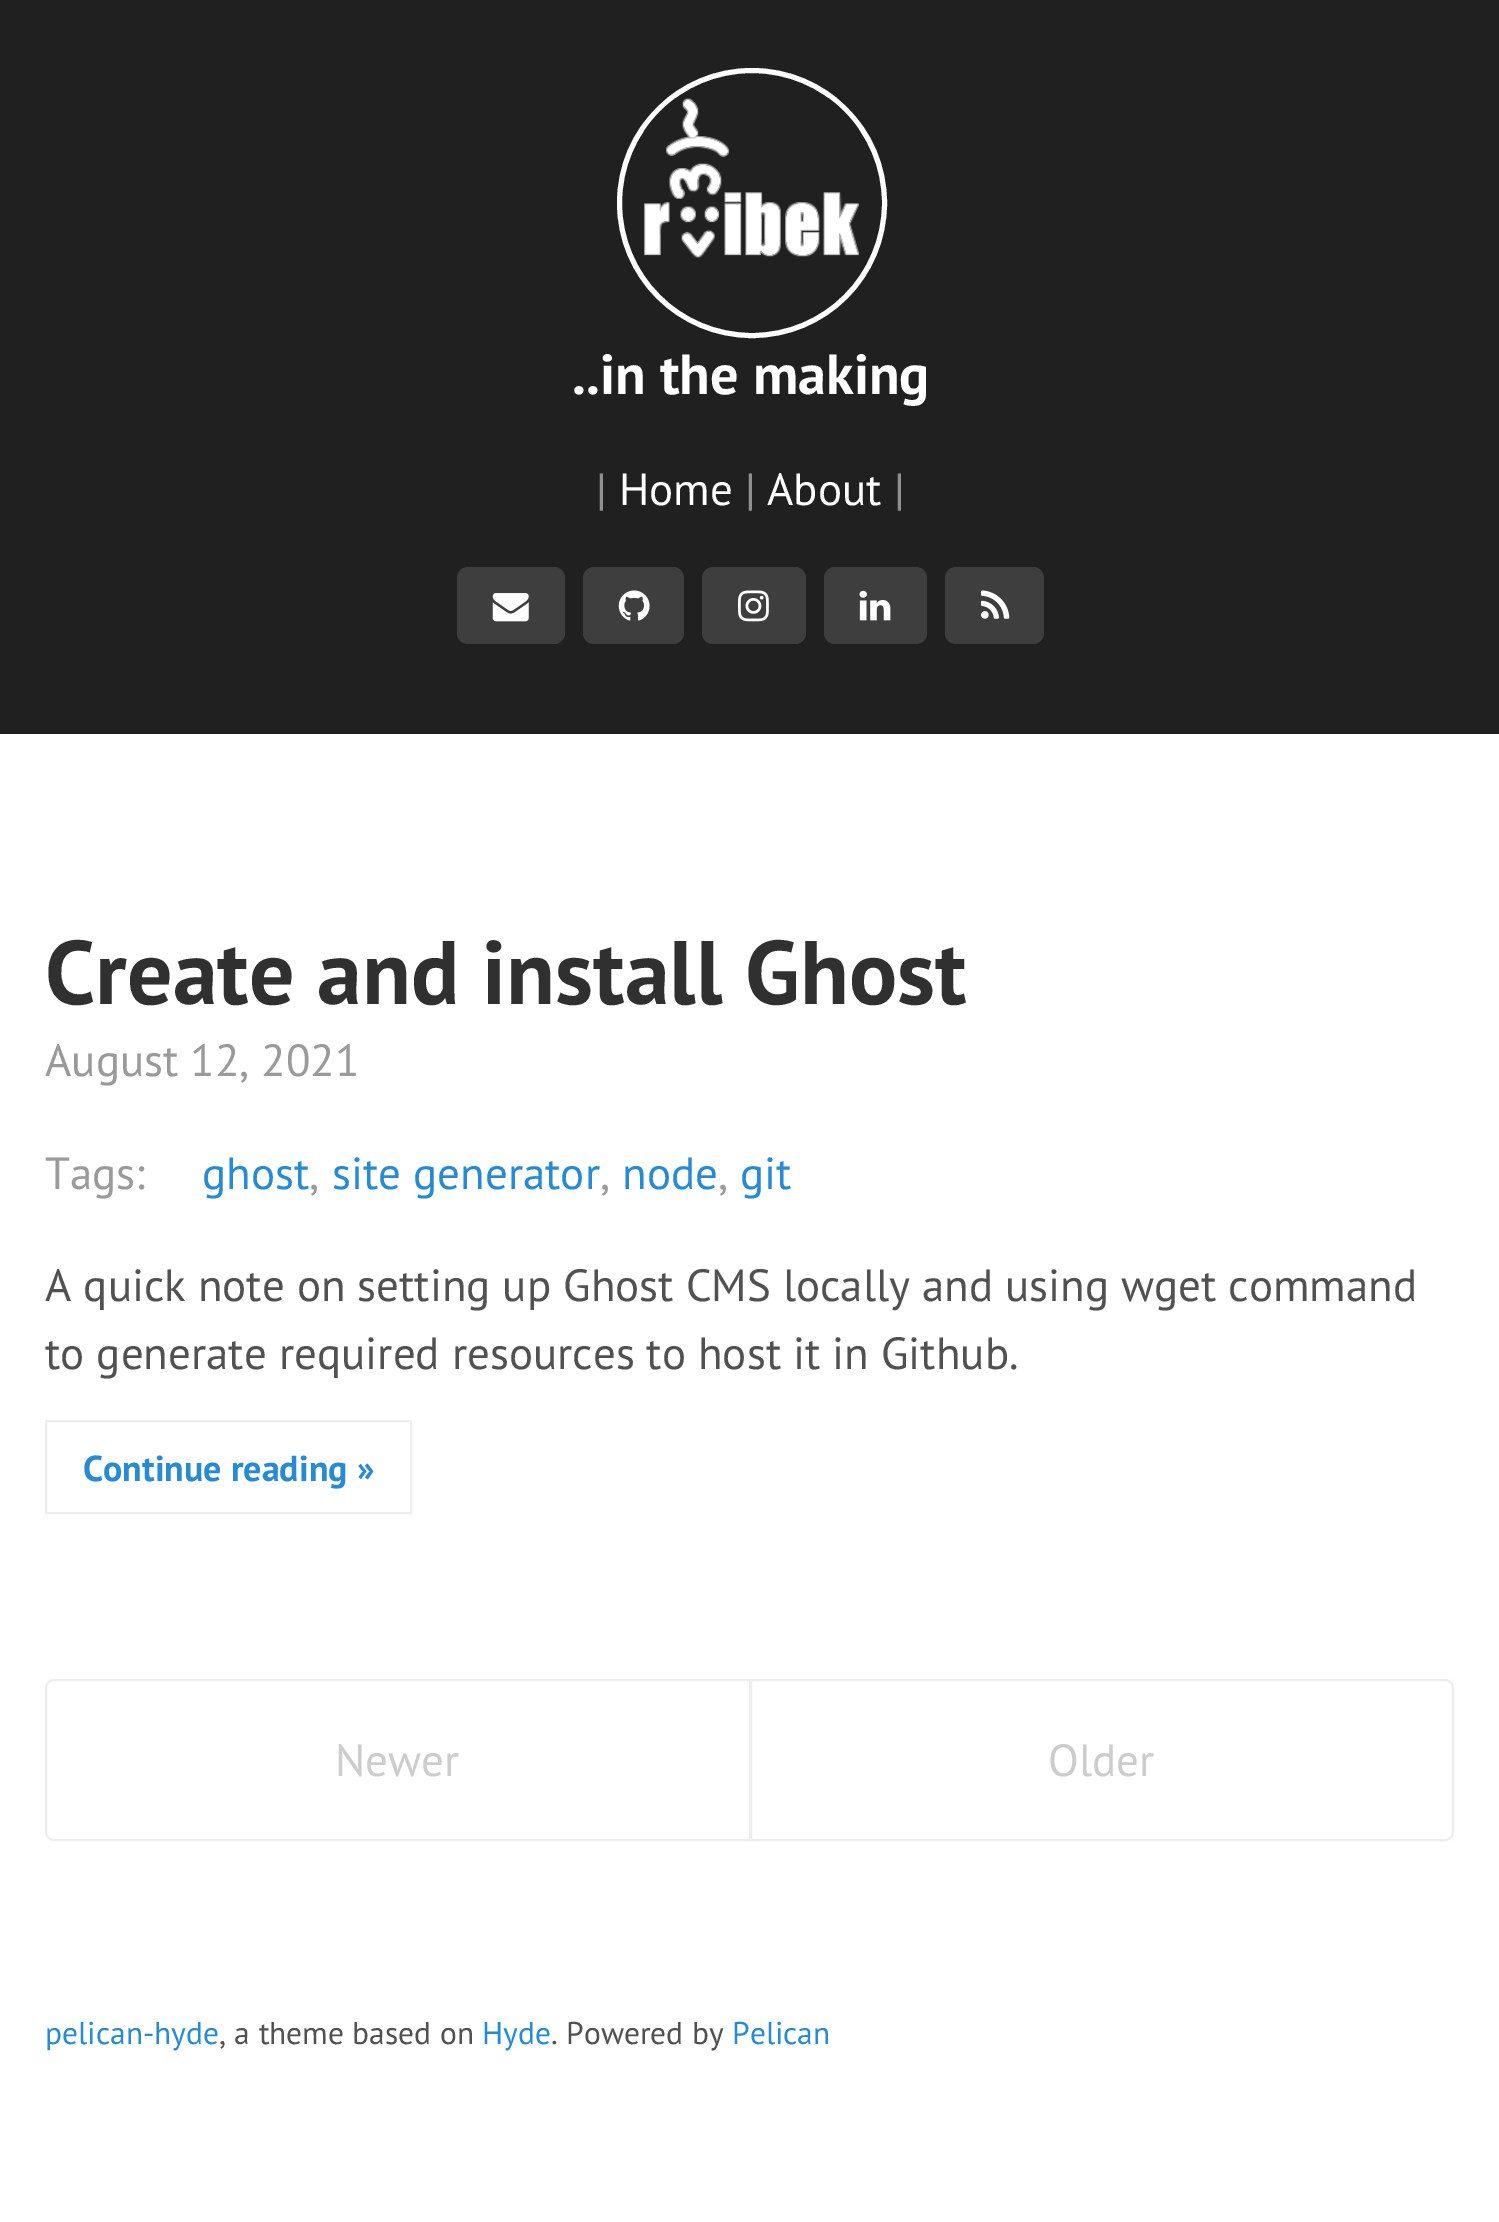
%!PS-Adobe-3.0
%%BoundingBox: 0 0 1499 2222
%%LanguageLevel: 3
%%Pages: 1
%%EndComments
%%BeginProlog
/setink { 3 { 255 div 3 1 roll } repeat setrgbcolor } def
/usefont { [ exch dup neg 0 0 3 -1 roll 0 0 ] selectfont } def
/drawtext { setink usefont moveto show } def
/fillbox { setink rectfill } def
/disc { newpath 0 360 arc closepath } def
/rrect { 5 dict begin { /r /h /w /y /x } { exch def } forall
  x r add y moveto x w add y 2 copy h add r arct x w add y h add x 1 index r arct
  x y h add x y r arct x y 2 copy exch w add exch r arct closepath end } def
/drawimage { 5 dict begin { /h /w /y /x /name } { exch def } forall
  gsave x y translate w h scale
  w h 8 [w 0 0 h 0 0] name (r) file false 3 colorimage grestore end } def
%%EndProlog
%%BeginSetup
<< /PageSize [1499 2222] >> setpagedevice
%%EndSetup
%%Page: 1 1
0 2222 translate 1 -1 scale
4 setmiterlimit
0 0 1499 2222 255 255 255 fillbox
0 0 1499 734 32 32 32 fillbox
255 255 255 setink
5 setlinewidth
752 203 132.5 disc stroke
(assets/img1.rgb) 644 98 215 160 drawimage
(..in the making) 572 394 /PTSans-Bold 56.25 255 255 255 drawtext
(|) 596 505 /PTSans-Regular 45 144 144 144 drawtext
(Home) 619 505 /PTSans-Regular 45 255 255 255 drawtext
(|) 745 505 /PTSans-Regular 45 144 144 144 drawtext
(About) 767 505 /PTSans-Regular 45 255 255 255 drawtext
(|) 894 505 /PTSans-Regular 45 144 144 144 drawtext
62 62 62 setink
457 567 108 77 11 rrect fill
(assets/img2.rgb) 492 593 37 29 drawimage
583 567 101 77 11 rrect fill
(assets/img3.rgb) 618 590 32 31 drawimage
702 567 104 77 11 rrect fill
(assets/img4.rgb) 738 590 31 32 drawimage
824 567 103 77 11 rrect fill
(assets/img5.rgb) 859 590 32 31 drawimage
945 567 99 77 11 rrect fill
(assets/img6.rgb) 981 590 29 29 drawimage
(Create and install Ghost) 45 1004 /PTSans-Bold 90 48 48 48 drawtext
(August 12, 2021) 45 1076 /PTSans-Regular 45 154 154 154 drawtext
(Tags:) 45 1189 /PTSans-Regular 45 154 154 154 drawtext
(ghost) 202 1189 /PTSans-Regular 45 38 139 210 drawtext
(,) 309 1189 /PTSans-Regular 45 154 154 154 drawtext
(site generator) 332 1189 /PTSans-Regular 45 38 139 210 drawtext
(,) 600 1189 /PTSans-Regular 45 154 154 154 drawtext
(node) 622 1189 /PTSans-Regular 45 38 139 210 drawtext
(,) 718 1189 /PTSans-Regular 45 154 154 154 drawtext
(git) 740 1189 /PTSans-Regular 45 38 139 210 drawtext
(A quick note on setting up Ghost CMS locally and using wget command) 45 1301 /PTSans-Regular 45 81 81 81 drawtext
(to generate required resources to host it in Github.) 45 1369 /PTSans-Regular 45 81 81 81 drawtext
238 238 238 setink
2 setlinewidth
46 1421 365 92 rectstroke
(Continue reading ») 83 1481 /PTSans-Bold 36 38 139 210 drawtext
238 238 238 setink
54 1680 moveto 751 1680 lineto 751 1840 lineto 54 1840 lineto 49.5 1840 46 1836.5 46 1832 curveto 46 1688 lineto 46 1683.5 49.5 1680 54 1680 curveto closepath stroke
(Newer) 335 1776 /PTSans-Regular 45 204 204 204 drawtext
238 238 238 setink
750 1680 moveto 1445 1680 lineto 1449.5 1680 1453 1683.5 1453 1688 curveto 1453 1832 lineto 1453 1836.5 1449.5 1840 1445 1840 curveto 750 1840 lineto closepath stroke
(Older) 1048 1776 /PTSans-Regular 45 204 204 204 drawtext
(pelican-hyde) 45 2044 /PTSans-Regular 31.5 38 139 210 drawtext
(, a theme based on) 219 2044 /PTSans-Regular 31.5 81 81 81 drawtext
(Hyde) 482 2044 /PTSans-Regular 31.5 38 139 210 drawtext
(. Powered by) 551 2044 /PTSans-Regular 31.5 81 81 81 drawtext
(Pelican) 732 2044 /PTSans-Regular 31.5 38 139 210 drawtext
showpage
%%EOF
